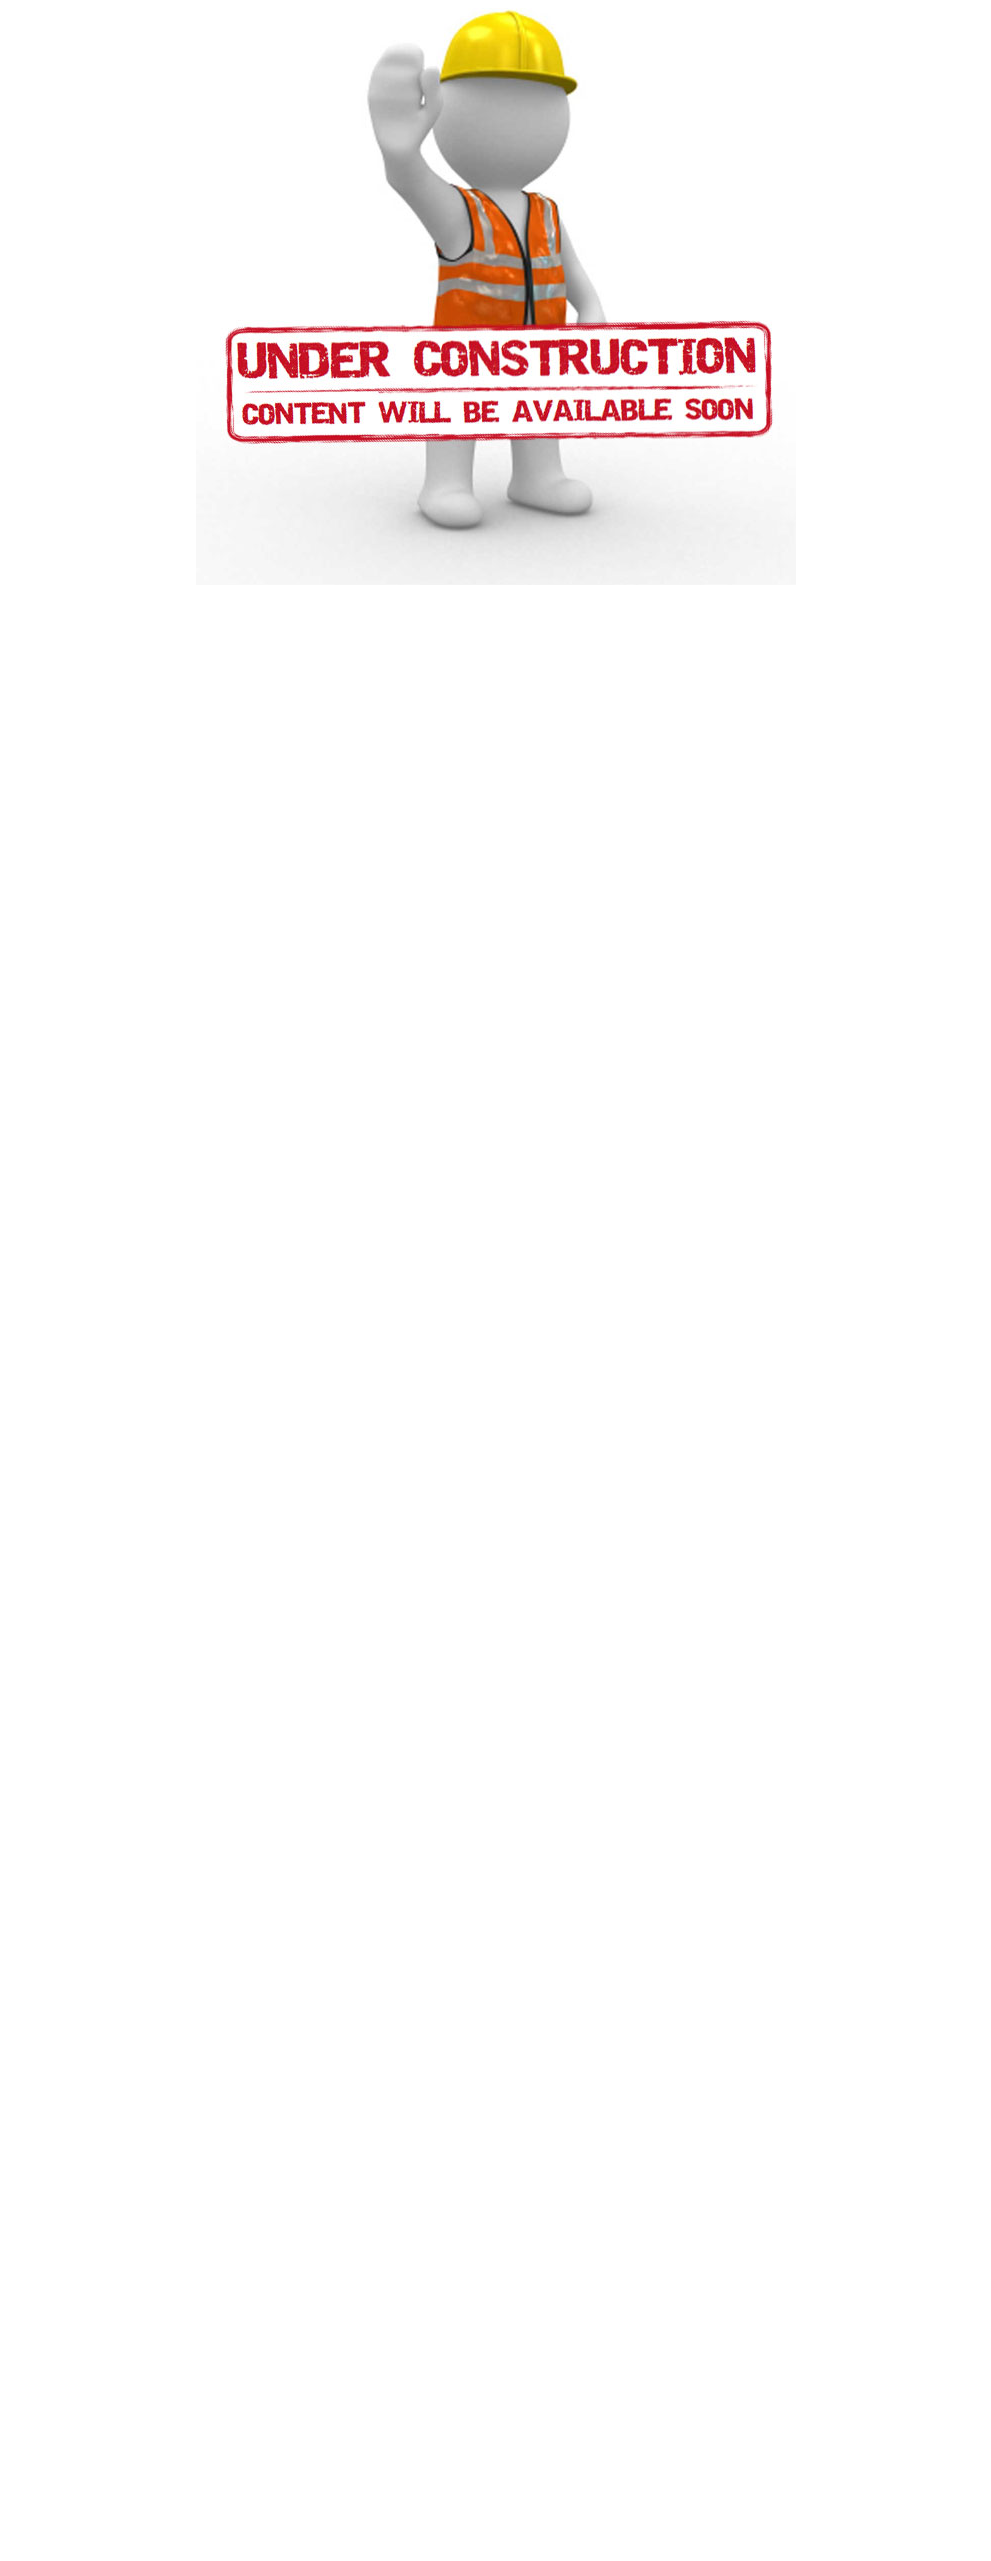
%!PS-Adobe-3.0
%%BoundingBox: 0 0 991 2561
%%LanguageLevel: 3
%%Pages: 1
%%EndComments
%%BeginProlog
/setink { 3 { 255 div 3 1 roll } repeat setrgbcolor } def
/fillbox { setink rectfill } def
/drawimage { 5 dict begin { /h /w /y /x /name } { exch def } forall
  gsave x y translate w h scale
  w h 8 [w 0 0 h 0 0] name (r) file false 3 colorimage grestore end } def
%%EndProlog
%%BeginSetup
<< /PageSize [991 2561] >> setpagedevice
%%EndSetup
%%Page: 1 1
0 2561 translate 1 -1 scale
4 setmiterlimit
0 0 991 2561 255 255 255 fillbox
(assets/img1.rgb) 196 8 600 577 drawimage
showpage
%%EOF
